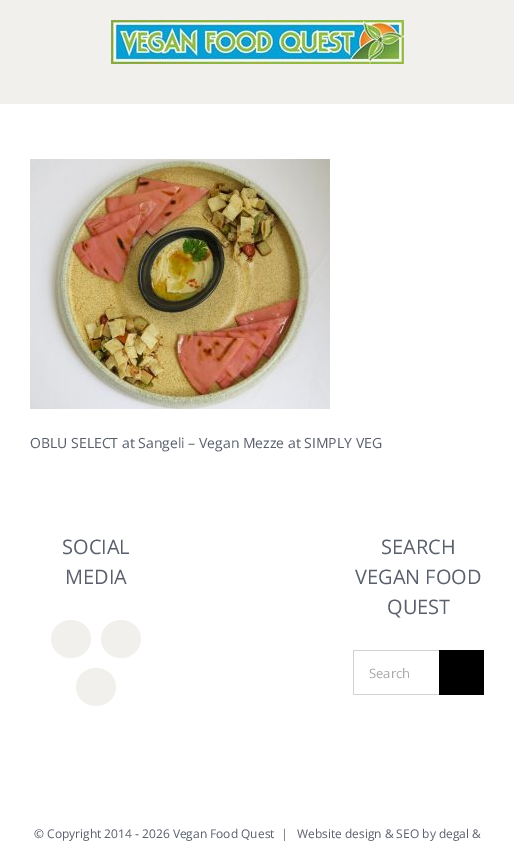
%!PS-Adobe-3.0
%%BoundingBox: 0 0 514 842
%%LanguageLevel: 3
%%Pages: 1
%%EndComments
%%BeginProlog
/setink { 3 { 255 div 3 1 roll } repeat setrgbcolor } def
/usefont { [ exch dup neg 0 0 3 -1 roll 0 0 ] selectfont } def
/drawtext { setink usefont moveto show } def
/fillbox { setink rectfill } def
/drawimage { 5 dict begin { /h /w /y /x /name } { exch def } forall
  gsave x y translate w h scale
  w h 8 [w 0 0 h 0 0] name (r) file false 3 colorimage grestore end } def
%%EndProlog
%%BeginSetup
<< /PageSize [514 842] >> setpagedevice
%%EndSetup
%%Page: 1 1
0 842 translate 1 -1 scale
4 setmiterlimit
0 0 514 842 255 255 255 fillbox
0 0 514 104 241 240 236 fillbox
(assets/img1.rgb) 111 20 293 44 drawimage
(assets/img2.rgb) 30 159 300 250 drawimage
(OBLU SELECT at Sangeli – Vegan Mezze at SIMPLY VEG) 30 448 /OpenSans-Regular 14 89 95 107 drawtext
(SOCIAL) 62 554 /OpenSans-Regular 20 89 95 107 drawtext
(MEDIA) 65 584 /OpenSans-Regular 20 89 95 107 drawtext
241 240 236 setink
71 620 moveto 82 620 91 628.5 91 639 curveto 91 649.5 82 658 71 658 curveto 60 658 51 649.5 51 639 curveto 51 628.5 60 620 71 620 curveto closepath fill
121 620 moveto 132 620 141 628.5 141 639 curveto 141 649.5 132 658 121 658 curveto 110 658 101 649.5 101 639 curveto 101 628.5 110 620 121 620 curveto closepath fill
96 668 moveto 107 668 116 676.5 116 687 curveto 116 697.5 107 706 96 706 curveto 85 706 76 697.5 76 687 curveto 76 676.5 85 668 96 668 curveto closepath fill
(SEARCH) 381 554 /OpenSans-Regular 20 89 95 107 drawtext
(VEGAN FOOD) 355 584 /OpenSans-Regular 20 89 95 107 drawtext
(QUEST) 387 614 /OpenSans-Regular 20 89 95 107 drawtext
353 650 86 1 210 210 210 fillbox
353 694 86 1 210 210 210 fillbox
353 650 1 45 210 210 210 fillbox
(Search) 369 678 /OpenSans-Regular 13 170 169 169 drawtext
439 650 45 45 0 0 0 fillbox
(© Copyright 2014 - 2026 Vegan Food Quest  |   Website design & SEO by degal &) 34 838 /OpenSans-Regular 12 89 95 107 drawtext
showpage
%%EOF
